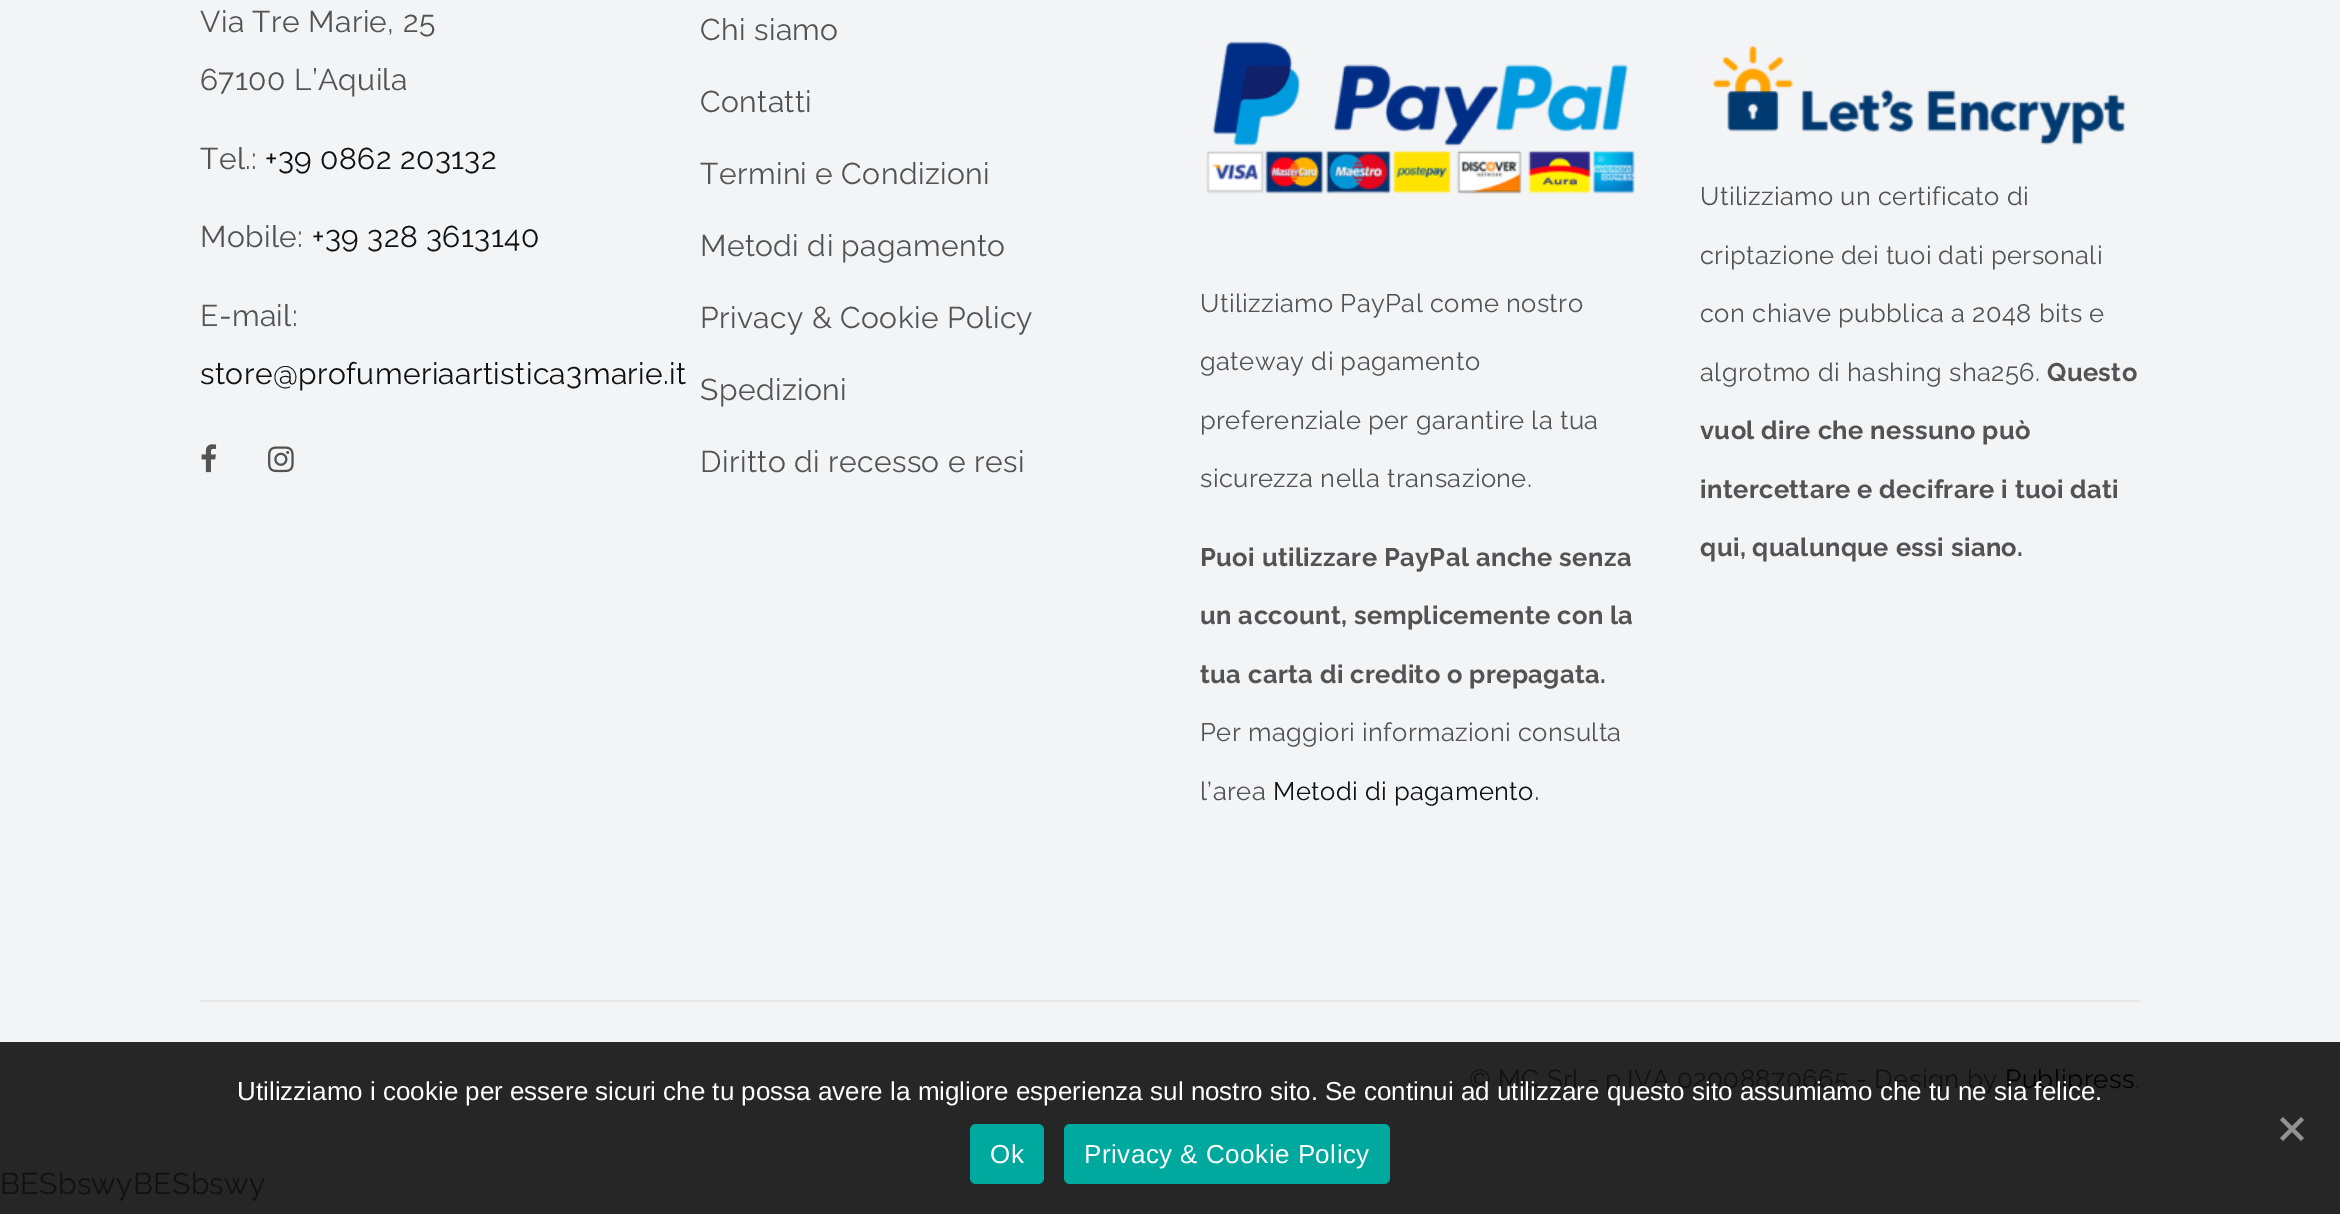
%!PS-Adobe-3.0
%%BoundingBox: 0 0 2340 1214
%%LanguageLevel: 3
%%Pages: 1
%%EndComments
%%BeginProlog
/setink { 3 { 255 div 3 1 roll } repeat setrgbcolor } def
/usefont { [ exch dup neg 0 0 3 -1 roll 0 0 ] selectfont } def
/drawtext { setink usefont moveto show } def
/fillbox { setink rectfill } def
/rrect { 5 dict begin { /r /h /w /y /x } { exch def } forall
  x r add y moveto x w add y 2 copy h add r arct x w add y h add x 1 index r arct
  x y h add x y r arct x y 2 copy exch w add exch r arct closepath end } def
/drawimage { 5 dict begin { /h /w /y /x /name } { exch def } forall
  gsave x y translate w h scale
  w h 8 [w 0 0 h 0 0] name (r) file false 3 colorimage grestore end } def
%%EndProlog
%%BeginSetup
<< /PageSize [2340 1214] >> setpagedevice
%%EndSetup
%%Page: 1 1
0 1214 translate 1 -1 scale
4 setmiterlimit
0 0 2340 1214 38 38 38 fillbox
0 0 2340 1042 243 244 246 fillbox
/Raleway-Regular 30 usefont
83 83 83 setink
200 32 moveto 0.4 0 (Via Tre Marie, 25) ashow
200 90 moveto 0.4 0 (67100 L’Aquila) ashow
200 169 moveto 0.4 0 (Tel.:) ashow
17 17 17 setink
265 169 moveto 0.4 0 (+39 0862 203132) ashow
83 83 83 setink
200 247 moveto 0.4 0 (Mobile:) ashow
17 17 17 setink
312 247 moveto 0.4 0 (+39 328 3613140) ashow
83 83 83 setink
200 326 moveto 0.4 0 (E-mail:) ashow
17 17 17 setink
200 384 moveto 0.4 0 (store@profumeriaartistica3marie.it) ashow
(assets/img1.rgb) 201 444 16 29 drawimage
(assets/img2.rgb) 268 446 26 27 drawimage
83 83 83 setink
700 40 moveto 0.4 0 (Chi siamo) ashow
700 112 moveto 0.4 0 (Contatti) ashow
700 184 moveto 0.4 0 (Termini e Condizioni) ashow
700 256 moveto 0.4 0 (Metodi di pagamento) ashow
700 328 moveto 0.4 0 (Privacy & Cookie Policy) ashow
700 400 moveto 0.4 0 (Spedizioni) ashow
700 472 moveto 0.4 0 (Diritto di recesso e resi) ashow
(assets/img3.rgb) 1206 41 429 153 drawimage
/Raleway-Regular 25.5 usefont
1200 312 moveto 0.4 0 (Utilizziamo PayPal come nostro) ashow
1200 370 moveto 0.4 0 (gateway di pagamento) ashow
1200 429 moveto 0.4 0 (preferenziale per garantire la tua) ashow
1200 487 moveto 0.4 0 (sicurezza nella transazione.) ashow
/Raleway-Bold 25.5 usefont
1200 566 moveto 0.4 0 (Puoi utilizzare PayPal anche senza) ashow
1200 624 moveto 0.4 0 (un account, semplicemente con la) ashow
1200 683 moveto 0.4 0 (tua carta di credito o prepagata.) ashow
/Raleway-Regular 25.5 usefont
1200 741 moveto 0.4 0 (Per maggiori informazioni consulta) ashow
1200 800 moveto 0.4 0 (l’area) ashow
17 17 17 setink
1273 800 moveto 0.4 0 (Metodi di pagamento) ashow
/Raleway-Regular 30 usefont
83 83 83 setink
1534 800 moveto 0.4 0 (.) ashow
(assets/img4.rgb) 1713 45 413 100 drawimage
/Raleway-Regular 25.5 usefont
1700 205 moveto 0.4 0 (Utilizziamo un certificato di) ashow
1700 264 moveto 0.4 0 (criptazione dei tuoi dati personali) ashow
1700 322 moveto 0.4 0 (con chiave pubblica a 2048 bits e) ashow
1700 381 moveto 0.4 0 (algrotmo di hashing sha256.) ashow
/Raleway-Bold 25.5 usefont
2047 381 moveto 0.4 0 (Questo) ashow
1700 439 moveto 0.4 0 (vuol dire che nessuno può) ashow
1700 498 moveto 0.4 0 (intercettare e decifrare i tuoi dati) ashow
1700 556 moveto 0.4 0 (qui, qualunque essi siano.) ashow
200 1000 1940 2 230 230 230 fillbox
/Raleway-Regular 26 usefont
17 17 17 setink
1469 1088 moveto 0.4 0 (© MC Srl - p.IVA 02008870665 - Design by) ashow
2 2 2 setink
2005 1088 moveto 0.4 0 (Publipress) ashow
17 17 17 setink
2135 1088 moveto 0.4 0 (.) ashow
(Utilizziamo i cookie per essere sicuri che tu possa avere la migliore esperienza sul nostro sito. Se continui ad utilizzare questo sito assumiamo che tu ne sia felice.) 237 1100 /LiberationSans-Regular 26 255 255 255 drawtext
146 146 146 setink
2301 1117 moveto 2304 1120 lineto 2283 1141 lineto 2280 1138 lineto closepath fill
2280 1120 moveto 2283 1117 lineto 2304 1138 lineto 2301 1141 lineto closepath fill
0 169 157 setink
970 1124 74 60 6 rrect fill
255 255 255 setink
990 1163 moveto 0.5 0 (Ok) ashow
0 169 157 setink
1064 1124 326 60 6 rrect fill
255 255 255 setink
1084 1163 moveto 0.5 0 (Privacy & Cookie Policy) ashow
/Raleway-Regular 30 usefont
17 17 17 setink
0 1194 moveto 0.4 0 (BESbswyBESbswy) ashow
showpage
%%EOF
